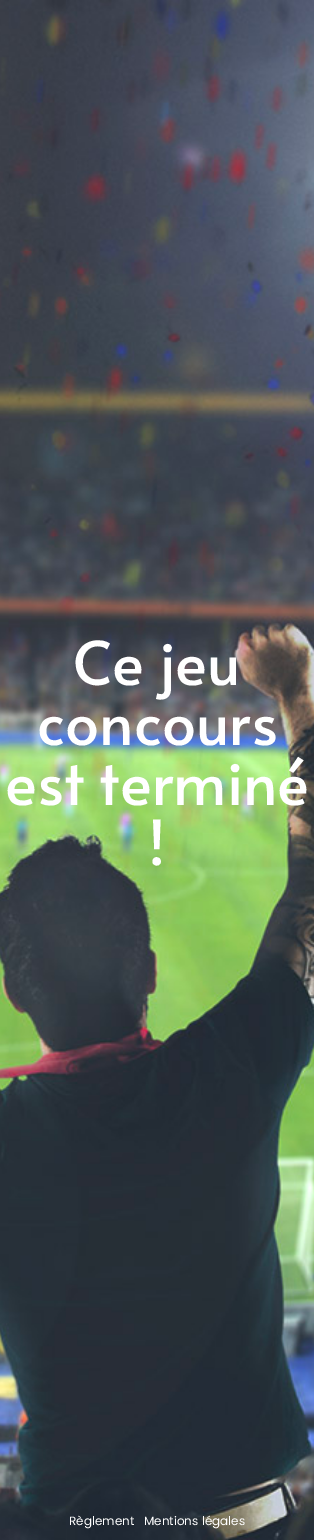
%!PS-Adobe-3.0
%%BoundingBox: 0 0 314 1540
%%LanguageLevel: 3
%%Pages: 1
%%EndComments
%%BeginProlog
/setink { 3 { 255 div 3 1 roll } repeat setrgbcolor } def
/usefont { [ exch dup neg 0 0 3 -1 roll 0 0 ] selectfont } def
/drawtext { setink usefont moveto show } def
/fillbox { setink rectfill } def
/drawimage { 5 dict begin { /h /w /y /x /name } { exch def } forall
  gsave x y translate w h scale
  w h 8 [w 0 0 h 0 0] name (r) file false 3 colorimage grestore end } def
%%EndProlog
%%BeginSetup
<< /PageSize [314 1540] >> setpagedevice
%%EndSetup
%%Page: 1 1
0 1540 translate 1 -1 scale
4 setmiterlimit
0 0 314 1540 255 255 255 fillbox
(assets/img1.rgb) 0 0 314 1540 drawimage
(Ce jeu) 73 685 /Alata-Regular 60 255 255 255 drawtext
(concours) 37 745 /Alata-Regular 60 255 255 255 drawtext
(est terminé) 5 805 /Alata-Regular 60 255 255 255 drawtext
(!) 148 865 /Alata-Regular 60 255 255 255 drawtext
(Règlement) 69 1525 /Poppins-Regular 12 255 255 255 drawtext
(Mentions légales) 144 1525 /Poppins-Regular 12 255 255 255 drawtext
showpage
%%EOF
